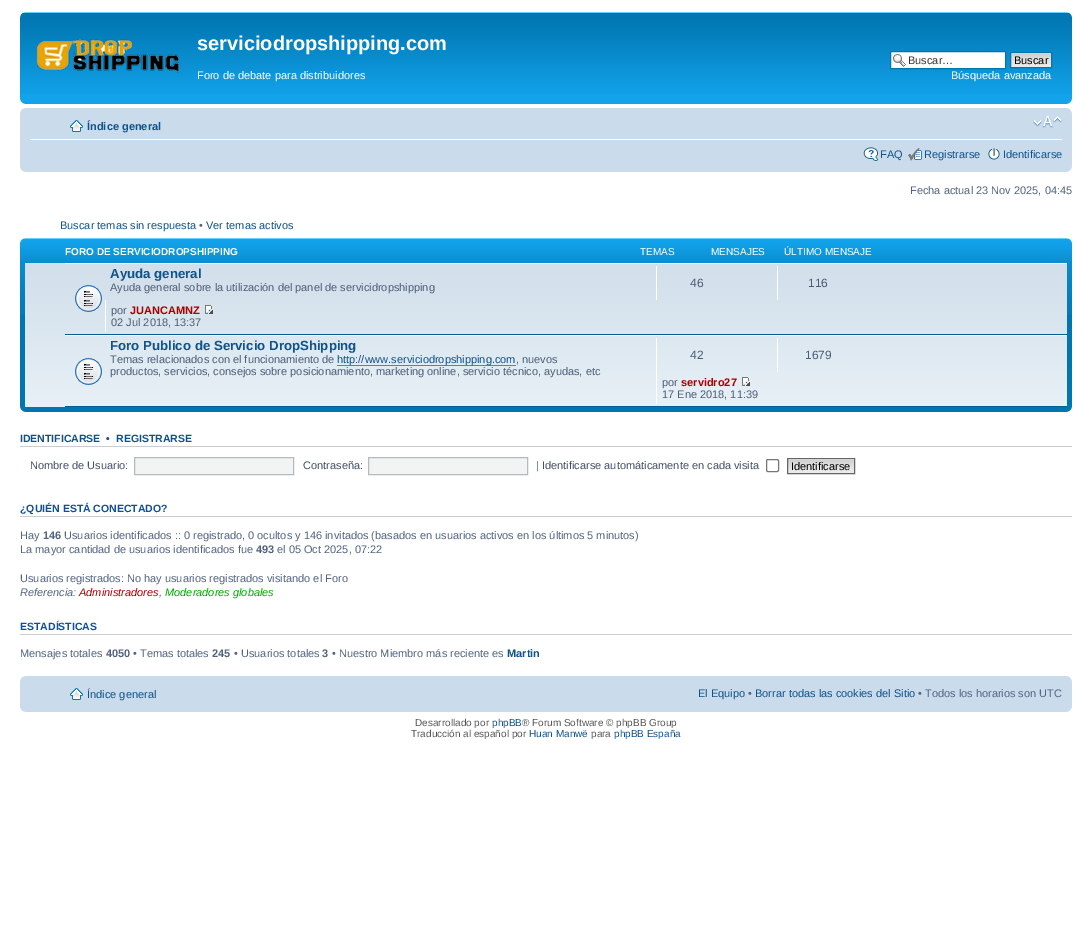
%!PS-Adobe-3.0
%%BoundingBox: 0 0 1092 950
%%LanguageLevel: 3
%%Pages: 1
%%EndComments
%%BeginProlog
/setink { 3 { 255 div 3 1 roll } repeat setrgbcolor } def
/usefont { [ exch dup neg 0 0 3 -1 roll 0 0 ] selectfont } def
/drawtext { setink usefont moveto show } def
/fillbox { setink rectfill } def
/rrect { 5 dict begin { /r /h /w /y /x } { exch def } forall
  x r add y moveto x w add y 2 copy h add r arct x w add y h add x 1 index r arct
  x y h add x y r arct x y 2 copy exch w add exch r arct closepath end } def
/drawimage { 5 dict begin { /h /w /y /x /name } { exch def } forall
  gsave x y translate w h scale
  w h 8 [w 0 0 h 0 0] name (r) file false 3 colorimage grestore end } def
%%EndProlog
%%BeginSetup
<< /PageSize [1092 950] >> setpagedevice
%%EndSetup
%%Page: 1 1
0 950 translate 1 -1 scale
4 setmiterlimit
0 0 1092 950 255 255 255 fillbox
20 94 1052 10 18 163 235 fillbox
(assets/img1.rgb) 20 12 1052 82 drawimage
(assets/img2.rgb) 20 12 5 5 drawimage
(assets/img3.rgb) 1067 12 5 5 drawimage
(assets/img4.rgb) 37 38 142 35 drawimage
(serviciodropshipping.com) 197 50 /LiberationSans-Bold 20 255 255 255 drawtext
(Foro de debate para distribuidores) 197 79 /LiberationSans-Regular 11 255 255 255 drawtext
891 52 114 16 255 255 255 fillbox
(assets/img5.rgb) 893 54 13 13 drawimage
0 117 176 setink
890.5 51.5 115 17 rectstroke
(Buscar…) 908 64 /LiberationSans-Regular 11 51 51 51 drawtext
(assets/img6.rgb) 1011 53 40 14 drawimage
0 117 176 setink
1010.5 52.5 41 15 rectstroke
(Buscar) 1014 64 /LiberationSans-Regular 11 0 0 0 drawtext
(Búsqueda avanzada) 951 79 /LiberationSans-Regular 11 255 255 255 drawtext
(assets/img7.rgb) 20 99 5 5 drawimage
(assets/img8.rgb) 1067 99 5 5 drawimage
20 108 1052 64 202 220 235 fillbox
(assets/img9.rgb) 20 108 5 5 drawimage
(assets/img10.rgb) 1067 108 5 5 drawimage
30 139 1032 1 255 255 255 fillbox
(assets/img11.rgb) 70 120 13 12 drawimage
(Índice general) 87 130 /LiberationSans-Bold 11 16 82 137 drawtext
(assets/img12.rgb) 1033 116 29 12 drawimage
(assets/img13.rgb) 863 147 16 14 drawimage
(FAQ) 880 158 /LiberationSans-Regular 11 16 82 137 drawtext
(assets/img14.rgb) 908 148 14 13 drawimage
(Registrarse) 924 158 /LiberationSans-Regular 11 16 82 137 drawtext
(assets/img15.rgb) 988 148 12 12 drawimage
(Identificarse) 1003 158 /LiberationSans-Regular 11 16 82 137 drawtext
(assets/img16.rgb) 20 167 5 5 drawimage
(assets/img17.rgb) 1067 167 5 5 drawimage
(Fecha actual 23 Nov 2025, 04:45) 910 194 /LiberationSans-Regular 11 83 100 130 drawtext
(Buscar temas sin respuesta) 60 229 /LiberationSans-Regular 11 16 82 137 drawtext
(•) 199 229 /LiberationSans-Regular 11 83 100 130 drawtext
(Ver temas activos) 206 229 /LiberationSans-Regular 11 16 82 137 drawtext
20 315 1052 97 0 118 177 fillbox
(assets/img18.rgb) 20 238 1052 77 drawimage
(assets/img19.rgb) 20 238 5 5 drawimage
(assets/img20.rgb) 1067 238 5 5 drawimage
(FORO DE SERVICIODROPSHIPPING) 65 255 /LiberationSans-Bold 10 255 255 255 drawtext
(TEMAS) 640 255 /LiberationSans-Regular 10 255 255 255 drawtext
(MENSAJES) 711 255 /LiberationSans-Regular 10 255 255 255 drawtext
(ÚLTIMO MENSAJE) 784 255 /LiberationSans-Regular 10 255 255 255 drawtext
(assets/img21.rgb) 25 263 1042 144 drawimage
65 263 1002 1 255 255 255 fillbox
65 334 1002 1 0 96 143 fillbox
(assets/img22.rgb) 75 285 27 27 drawimage
(Ayuda general) 110 278 /LiberationSans-Bold 13.25 16 82 137 drawtext
(Ayuda general sobre la utilización del panel de servicidropshipping) 110 291 /LiberationSans-Regular 11 76 93 119 drawtext
656 266 1 34 255 255 255 fillbox
(46) 690 287 /LiberationSans-Regular 12 76 93 119 drawtext
777 266 1 34 255 255 255 fillbox
(116) 808 287 /LiberationSans-Regular 12 76 93 119 drawtext
105 300 1 32 255 255 255 fillbox
(por) 111 314 /LiberationSans-Regular 11 76 93 119 drawtext
(JUANCAMNZ) 130 314 /LiberationSans-Bold 11 170 0 0 drawtext
(assets/img23.rgb) 205 305 8 9 drawimage
(02 Jul 2018, 13:37) 111 326 /LiberationSans-Regular 11 76 93 119 drawtext
65 335 1002 1 255 255 255 fillbox
65 406 1002 1 0 96 143 fillbox
(assets/img24.rgb) 75 358 27 27 drawimage
(Foro Publico de Servicio DropShipping) 110 350 /LiberationSans-Bold 13.25 16 82 137 drawtext
(Temas relacionados con el funcionamiento de) 110 363 /LiberationSans-Regular 11 76 93 119 drawtext
337 365 179 1 54 138 210 fillbox
(http://www.serviciodropshipping.com) 337 363 /LiberationSans-Regular 11 16 82 137 drawtext
(, nuevos) 516 363 /LiberationSans-Regular 11 76 93 119 drawtext
(productos, servicios, consejos sobre posicionamiento, marketing online, servicio técnico, ayudas, etc) 110 375 /LiberationSans-Regular 11 76 93 119 drawtext
656 338 1 66 255 255 255 fillbox
(42) 690 359 /LiberationSans-Regular 12 76 93 119 drawtext
777 338 1 34 255 255 255 fillbox
(1679) 805 359 /LiberationSans-Regular 12 76 93 119 drawtext
(por) 662 386 /LiberationSans-Regular 11 76 93 119 drawtext
(servidro27) 681 386 /LiberationSans-Bold 11 170 0 0 drawtext
(assets/img25.rgb) 742 377 8 9 drawimage
(17 Ene 2018, 11:39) 662 398 /LiberationSans-Regular 11 76 93 119 drawtext
(assets/img26.rgb) 20 407 5 5 drawimage
(assets/img27.rgb) 1067 407 5 5 drawimage
20 446 1052 1 204 204 204 fillbox
(IDENTIFICARSE) 20 442 /LiberationSans-Bold 10.5 16 82 137 drawtext
(•) 106 442 /LiberationSans-Bold 10.5 17 80 152 drawtext
(REGISTRARSE) 116 442 /LiberationSans-Bold 10.5 16 82 137 drawtext
(Nombre de Usuario:) 30 469 /LiberationSans-Regular 11 66 80 103 drawtext
242 243 243 setink
134.5 457.5 moveto 293.5 457.5 lineto 293.5 474.5 lineto 134.5 474.5 lineto closepath gsave fill grestore
180 186 192 setink
stroke
(Contraseña:) 303 469 /LiberationSans-Regular 11 66 80 103 drawtext
242 243 243 setink
368.5 457.5 moveto 527.5 457.5 lineto 527.5 474.5 lineto 368.5 474.5 lineto closepath gsave fill grestore
180 186 192 setink
stroke
(|) 536 469 /LiberationSans-Regular 11 83 100 130 drawtext
(Identificarse automáticamente en cada visita) 542 469 /LiberationSans-Regular 11 66 80 103 drawtext
118 118 118 setink
766.5 459.5 12 12 1.5 rrect stroke
(assets/img28.rgb) 788 459 66 14 drawimage
102 102 102 setink
787.5 458.5 67 15 rectstroke
(Identificarse) 791 470 /LiberationSans-Regular 11 0 0 0 drawtext
20 516 1052 1 204 204 204 fillbox
(¿QUIÉN ESTÁ CONECTADO?) 20 512 /LiberationSans-Bold 10.5 17 80 152 drawtext
(Hay) 20 539 /LiberationSans-Regular 11 83 100 130 drawtext
(146) 43 539 /LiberationSans-Bold 11 83 100 130 drawtext
(Usuarios identificados :: 0 registrado, 0 ocultos y 146 invitados \(basados en usuarios activos en los últimos 5 minutos\)) 64 539 /LiberationSans-Regular 11 83 100 130 drawtext
(La mayor cantidad de usuarios identificados fue) 20 553 /LiberationSans-Regular 11 83 100 130 drawtext
(493) 256 553 /LiberationSans-Bold 11 83 100 130 drawtext
(el 05 Oct 2025, 07:22) 277 553 /LiberationSans-Regular 11 83 100 130 drawtext
(Usuarios registrados: No hay usuarios registrados visitando el Foro) 20 582 /LiberationSans-Regular 11 83 100 130 drawtext
(Referencia:) 20 596 /LiberationSans-Italic 11 83 100 130 drawtext
(Administradores) 79 596 /LiberationSans-Italic 11 170 0 0 drawtext
(,) 159 596 /LiberationSans-Italic 11 83 100 130 drawtext
(Moderadores globales) 165 596 /LiberationSans-Italic 11 0 170 0 drawtext
20 634 1052 1 204 204 204 fillbox
(ESTADÍSTICAS) 20 630 /LiberationSans-Bold 10.5 17 80 152 drawtext
(Mensajes totales) 20 657 /LiberationSans-Regular 11 83 100 130 drawtext
(4050) 106 657 /LiberationSans-Bold 11 83 100 130 drawtext
(• Temas totales) 133 657 /LiberationSans-Regular 11 83 100 130 drawtext
(245) 212 657 /LiberationSans-Bold 11 83 100 130 drawtext
(• Usuarios totales) 234 657 /LiberationSans-Regular 11 83 100 130 drawtext
(3) 322 657 /LiberationSans-Bold 11 83 100 130 drawtext
(• Nuestro Miembro más reciente es) 332 657 /LiberationSans-Regular 11 83 100 130 drawtext
(Martin) 507 657 /LiberationSans-Bold 11 16 82 137 drawtext
20 676 1052 36 202 220 235 fillbox
(assets/img9.rgb) 20 676 5 5 drawimage
(assets/img10.rgb) 1067 676 5 5 drawimage
(assets/img11.rgb) 70 688 13 12 drawimage
(Índice general) 87 698 /LiberationSans-Regular 11 16 82 137 drawtext
(El Equipo) 698 697 /LiberationSans-Regular 11 16 82 137 drawtext
(•) 748 697 /LiberationSans-Regular 11 83 100 130 drawtext
(Borrar todas las cookies del Sitio) 755 697 /LiberationSans-Regular 11 16 82 137 drawtext
(• Todos los horarios son UTC) 918 697 /LiberationSans-Regular 11 83 100 130 drawtext
(assets/img16.rgb) 20 707 5 5 drawimage
(assets/img17.rgb) 1067 707 5 5 drawimage
(Desarrollado por) 415 726 /LiberationSans-Regular 10 85 85 85 drawtext
(phpBB) 492 726 /LiberationSans-Regular 10 16 82 137 drawtext
(® Forum Software © phpBB Group) 522 726 /LiberationSans-Regular 10 85 85 85 drawtext
(Traducción al español por) 411 737 /LiberationSans-Regular 10 85 85 85 drawtext
(Huan Manwë) 529 737 /LiberationSans-Regular 10 16 82 137 drawtext
(para) 591 737 /LiberationSans-Regular 10 85 85 85 drawtext
(phpBB España) 614 737 /LiberationSans-Regular 10 16 82 137 drawtext
showpage
%%EOF
